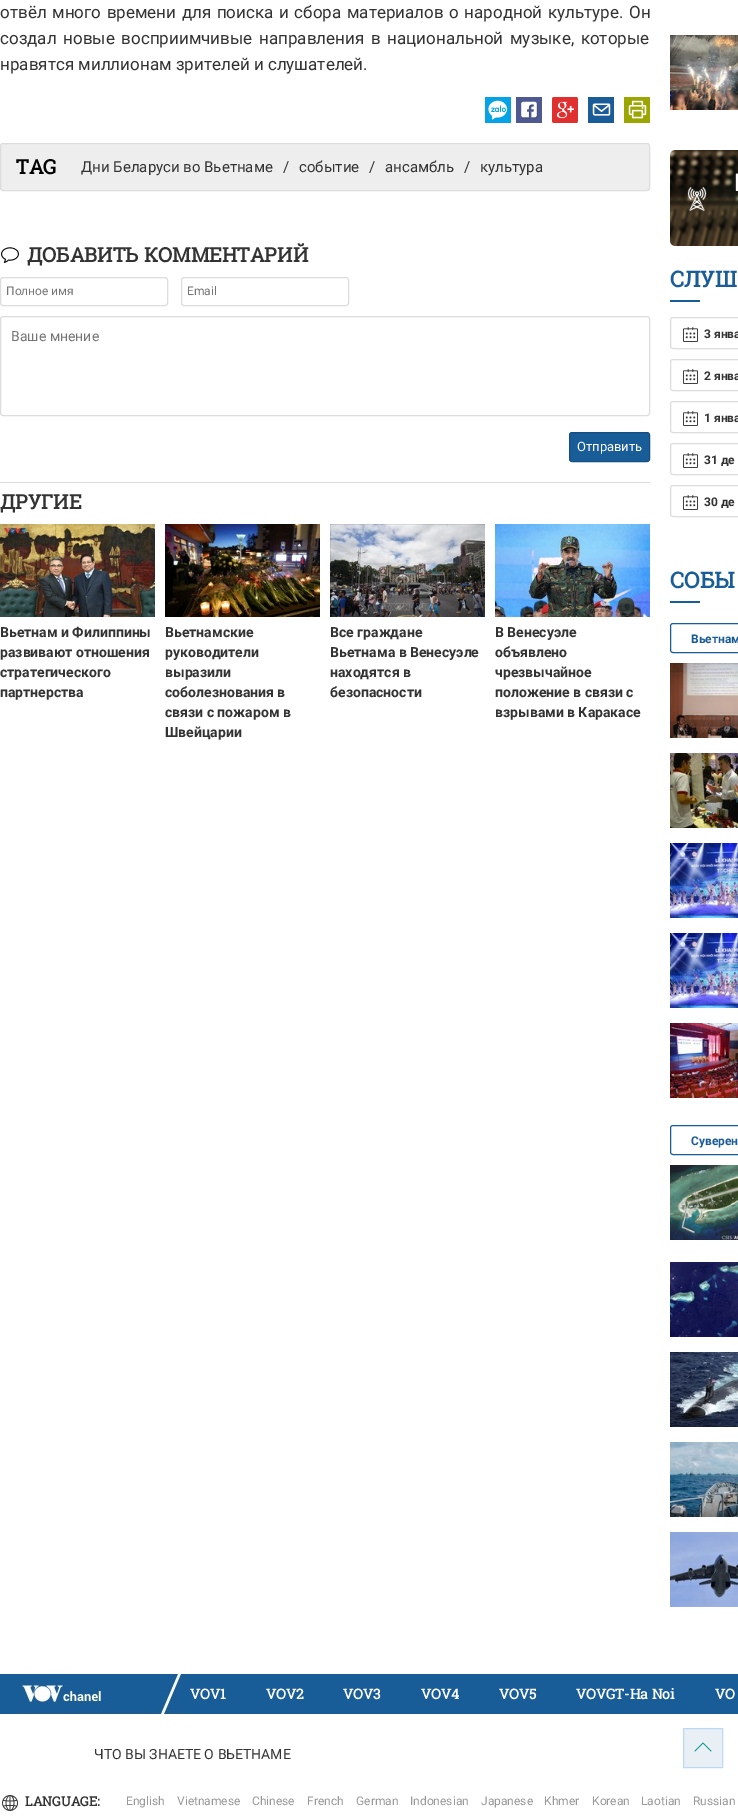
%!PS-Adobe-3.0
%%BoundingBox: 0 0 738 1818
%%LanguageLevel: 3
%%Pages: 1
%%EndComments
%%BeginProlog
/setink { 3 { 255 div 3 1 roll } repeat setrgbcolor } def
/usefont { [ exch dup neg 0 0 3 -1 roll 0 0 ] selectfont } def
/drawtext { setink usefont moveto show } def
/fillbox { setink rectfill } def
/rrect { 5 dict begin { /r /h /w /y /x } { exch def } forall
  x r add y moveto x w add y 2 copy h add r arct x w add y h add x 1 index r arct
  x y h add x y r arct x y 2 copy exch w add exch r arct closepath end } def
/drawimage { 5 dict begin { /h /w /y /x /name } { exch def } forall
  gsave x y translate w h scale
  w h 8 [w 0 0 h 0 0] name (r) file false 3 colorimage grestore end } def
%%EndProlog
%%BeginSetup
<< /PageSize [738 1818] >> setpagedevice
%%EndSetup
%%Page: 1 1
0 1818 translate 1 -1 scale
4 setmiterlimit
0 0 738 1818 255 255 255 fillbox
/Roboto-Regular 17 usefont
51 51 51 setink
0 18 moveto 1.4 0 32 (отвёл много времени для поиска и сбора материалов о народной культуре. Он) widthshow
0 44 moveto 2.5 0 32 (создал новые восприимчивые направления в национальной музыке, которые) widthshow
(нравятся миллионам зрителей и слушателей.) 0 70 /Roboto-Regular 17 51 51 51 drawtext
(assets/img1.rgb) 485 97 26 26 drawimage
(assets/img2.rgb) 516 97 26 26 drawimage
(assets/img3.rgb) 552 97 26 26 drawimage
(assets/img4.rgb) 588 97 26 26 drawimage
(assets/img5.rgb) 624 97 26 26 drawimage
238 238 238 setink
0.5 143.5 649 47 2.5 rrect gsave fill grestore
221 221 221 setink
stroke
(TAG) 16 174 /RobotoSlab-Bold 20 0 0 0 drawtext
(Дни Беларуси во Вьетнаме) 81 172 /Roboto-Regular 15 51 51 51 drawtext
(/) 283 172 /Roboto-Regular 15 51 51 51 drawtext
(событие) 299 172 /Roboto-Regular 15 51 51 51 drawtext
(/) 369 172 /Roboto-Regular 15 51 51 51 drawtext
(ансамбль) 385 172 /Roboto-Regular 15 51 51 51 drawtext
(/) 464 172 /Roboto-Regular 15 51 51 51 drawtext
(культура) 480 172 /Roboto-Regular 15 51 51 51 drawtext
(assets/img6.rgb) 1 247 18 16 drawimage
(ДОБАВИТЬ КОММЕНТАРИЙ) 27 262 /RobotoSlab-Bold 20 51 51 51 drawtext
221 221 221 setink
0.5 277.5 167 28 2.5 rrect stroke
(Полное имя) 6 295 /Roboto-Regular 12 117 117 117 drawtext
221 221 221 setink
181.5 277.5 167 28 2.5 rrect stroke
(Email) 187 295 /Roboto-Regular 12 117 117 117 drawtext
221 221 221 setink
0.5 316.5 649 99 2.5 rrect stroke
(Ваше мнение) 11 341 /Roboto-Regular 14 117 117 117 drawtext
24 92 152 setink
569.5 432.5 80 29 2.5 rrect gsave fill grestore
21 79 130 setink
stroke
(Отправить) 577 451 /Roboto-Regular 13 255 255 255 drawtext
0 482 650 1 221 221 221 fillbox
(ДРУГИЕ) 0 509 /RobotoSlab-Bold 20 51 51 51 drawtext
(assets/img7.rgb) 0 524 155 93 drawimage
(Вьетнам и Филиппины) 0 637 /Roboto-Bold 14 51 51 51 drawtext
(развивают отношения) 0 657 /Roboto-Bold 14 51 51 51 drawtext
(стратегического) 0 677 /Roboto-Bold 14 51 51 51 drawtext
(партнерства) 0 697 /Roboto-Bold 14 51 51 51 drawtext
(assets/img8.rgb) 165 524 155 93 drawimage
(Вьетнамские) 165 637 /Roboto-Bold 14 51 51 51 drawtext
(руководители) 165 657 /Roboto-Bold 14 51 51 51 drawtext
(выразили) 165 677 /Roboto-Bold 14 51 51 51 drawtext
(соболезнования в) 165 697 /Roboto-Bold 14 51 51 51 drawtext
(связи с пожаром в) 165 717 /Roboto-Bold 14 51 51 51 drawtext
(Швейцарии) 165 737 /Roboto-Bold 14 51 51 51 drawtext
(assets/img9.rgb) 330 524 155 93 drawimage
(Все граждане) 330 637 /Roboto-Bold 14 51 51 51 drawtext
(Вьетнама в Венесуэле) 330 657 /Roboto-Bold 14 51 51 51 drawtext
(находятся в) 330 677 /Roboto-Bold 14 51 51 51 drawtext
(безопасности) 330 697 /Roboto-Bold 14 51 51 51 drawtext
(assets/img10.rgb) 495 524 155 93 drawimage
(В Венесуэле) 495 637 /Roboto-Bold 14 51 51 51 drawtext
(объявлено) 495 657 /Roboto-Bold 14 51 51 51 drawtext
(чрезвычайное) 495 677 /Roboto-Bold 14 51 51 51 drawtext
(положение в связи с) 495 697 /Roboto-Bold 14 51 51 51 drawtext
(взрывами в Каракасе) 495 717 /Roboto-Bold 14 51 51 51 drawtext
(assets/img11.rgb) 670 35 68 75 drawimage
(assets/img12.rgb) 670 150 68 96 drawimage
(СЛУШ) 670 287 /RobotoSlab-Bold 22 24 92 152 drawtext
670 300 30 2 24 92 152 fillbox
221 221 221 setink
670.5 317.5 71 31 2.5 rrect stroke
(assets/img13.rgb) 683 327 15 15 drawimage
(3 янва) 704 338 /Roboto-Bold 12 51 51 51 drawtext
221 221 221 setink
670.5 359.5 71 31 2.5 rrect stroke
(assets/img13.rgb) 683 369 15 15 drawimage
(2 янва) 704 380 /Roboto-Bold 12 51 51 51 drawtext
221 221 221 setink
670.5 401.5 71 31 2.5 rrect stroke
(assets/img13.rgb) 683 411 15 15 drawimage
(1 янва) 704 422 /Roboto-Bold 12 51 51 51 drawtext
221 221 221 setink
670.5 443.5 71 31 2.5 rrect stroke
(assets/img13.rgb) 683 453 15 15 drawimage
(31 де) 704 464 /Roboto-Bold 12 51 51 51 drawtext
221 221 221 setink
670.5 485.5 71 31 2.5 rrect stroke
(assets/img13.rgb) 683 495 15 15 drawimage
(30 де) 704 506 /Roboto-Bold 12 51 51 51 drawtext
(СОБЫ) 670 588 /RobotoSlab-Bold 22 24 92 152 drawtext
670 601 30 2 24 92 152 fillbox
670.5 623.5 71 29 2.5 rrect stroke
(Вьетнам) 691 643 /Roboto-Bold 12 24 92 152 drawtext
(assets/img14.rgb) 670 663 68 75 drawimage
(assets/img15.rgb) 670 753 68 75 drawimage
(assets/img16.rgb) 670 843 68 75 drawimage
(assets/img17.rgb) 670 933 68 75 drawimage
(assets/img18.rgb) 670 1023 68 75 drawimage
670.5 1125.5 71 29 2.5 rrect stroke
(Суверен) 691 1145 /Roboto-Bold 12 24 92 152 drawtext
(assets/img19.rgb) 670 1165 68 75 drawimage
(assets/img20.rgb) 670 1262 68 75 drawimage
(assets/img21.rgb) 670 1352 68 75 drawimage
(assets/img22.rgb) 670 1442 68 75 drawimage
(assets/img23.rgb) 670 1532 68 75 drawimage
0 1674 738 40 24 92 152 fillbox
(assets/img24.rgb) 20 1674 164 40 drawimage
(VOV1) 190 1699 /RobotoSlab-Bold 14 255 255 255 drawtext
(VOV2) 266 1699 /RobotoSlab-Bold 14 255 255 255 drawtext
(VOV3) 343 1699 /RobotoSlab-Bold 14 255 255 255 drawtext
(VOV4) 421 1699 /RobotoSlab-Bold 14 255 255 255 drawtext
(VOV5) 499 1699 /RobotoSlab-Bold 14 255 255 255 drawtext
(VOVGT-Ha Noi) 576 1699 /RobotoSlab-Bold 14 255 255 255 drawtext
(VO) 715 1699 /RobotoSlab-Bold 14 255 255 255 drawtext
(ЧТО ВЫ ЗНАЕТЕ О ВЬЕТНАМЕ) 94 1759 /Roboto-Regular 14 51 51 51 drawtext
(assets/img25.rgb) 2 1795 16 16 drawimage
(LANGUAGE:) 25 1806 /RobotoSlab-Bold 13 51 51 51 drawtext
(English) 126 1805 /Roboto-Regular 12 153 153 153 drawtext
(Vietnamese) 177 1805 /Roboto-Regular 12 153 153 153 drawtext
(Chinese) 252 1805 /Roboto-Regular 12 153 153 153 drawtext
(French) 307 1805 /Roboto-Regular 12 153 153 153 drawtext
(German) 356 1805 /Roboto-Regular 12 153 153 153 drawtext
(Indonesian) 410 1805 /Roboto-Regular 12 153 153 153 drawtext
(Japanese) 481 1805 /Roboto-Regular 12 153 153 153 drawtext
(Khmer) 544 1805 /Roboto-Regular 12 153 153 153 drawtext
(Korean) 592 1805 /Roboto-Regular 12 153 153 153 drawtext
(Laotian) 641 1805 /Roboto-Regular 12 153 153 153 drawtext
(Russian) 693 1805 /Roboto-Regular 12 153 153 153 drawtext
232 239 245 setink
683.5 1728.5 moveto 722.5 1728.5 lineto 722.5 1767.5 lineto 683.5 1767.5 lineto closepath gsave fill grestore
187 217 244 setink
stroke
(assets/img26.rgb) 694 1742 18 10 drawimage
showpage
%%EOF
